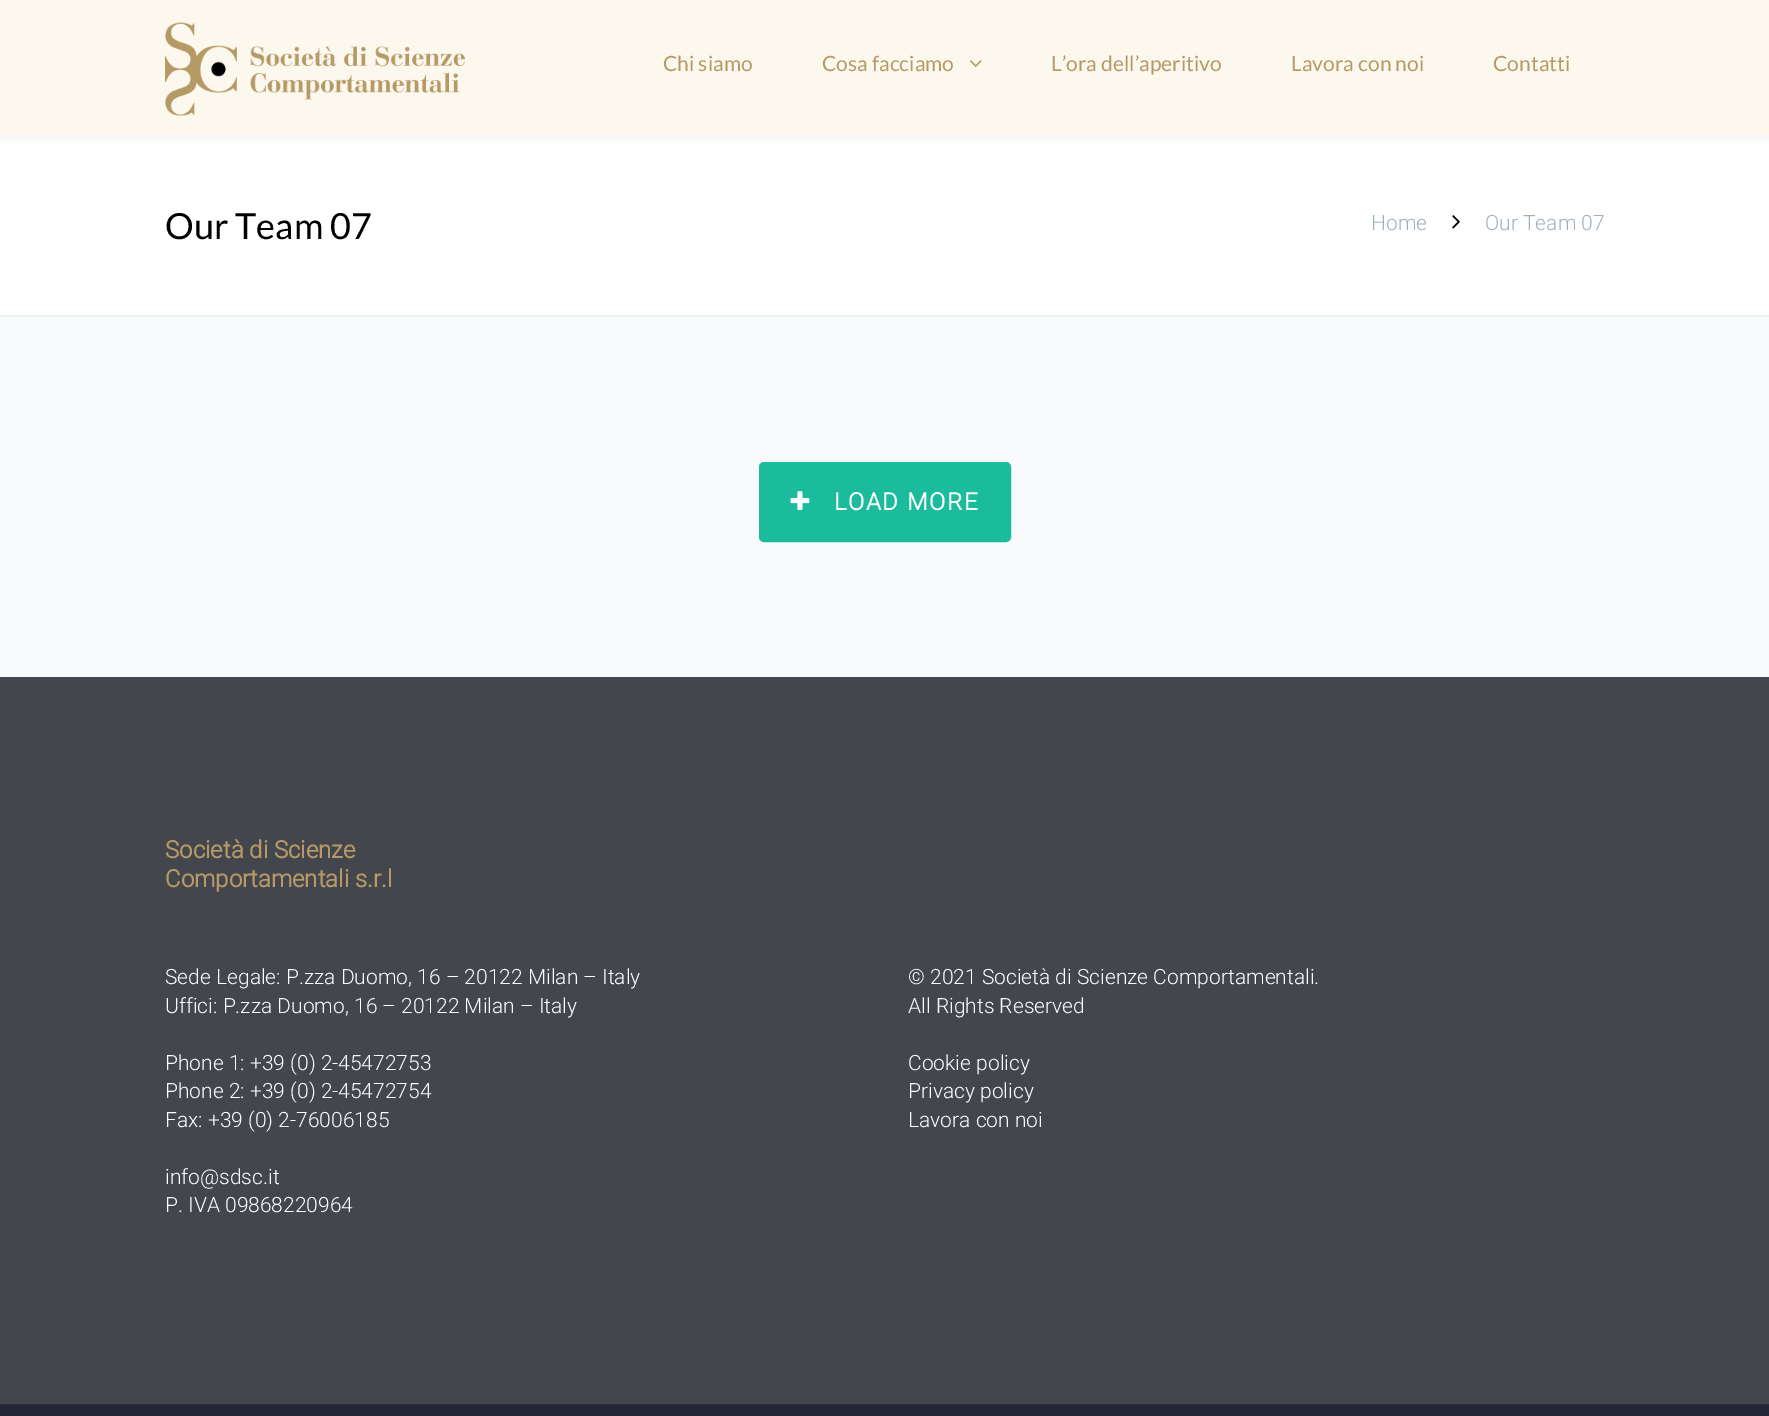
%!PS-Adobe-3.0
%%BoundingBox: 0 0 1769 1416
%%LanguageLevel: 3
%%Pages: 1
%%EndComments
%%BeginProlog
/setink { 3 { 255 div 3 1 roll } repeat setrgbcolor } def
/usefont { [ exch dup neg 0 0 3 -1 roll 0 0 ] selectfont } def
/drawtext { setink usefont moveto show } def
/fillbox { setink rectfill } def
/setalpha { dup .setfillconstantalpha .setstrokeconstantalpha } def
/rrect { 5 dict begin { /r /h /w /y /x } { exch def } forall
  x r add y moveto x w add y 2 copy h add r arct x w add y h add x 1 index r arct
  x y h add x y r arct x y 2 copy exch w add exch r arct closepath end } def
/softshadow { 12 dict begin { /a /b /q /h /w /y /x } { exch def } forall gsave /was 0 def
  9 -2 -9 { dup b mul 4 div /e exch def 1 sub .425 mul 2.718 exch exp 1 add a .99 .min exch div /now exch def
    1 1 now sub 1 was sub div sub setalpha /was now def
    w h .min e 2 mul add 0 gt { x e sub y e sub w e 2 mul add h e 2 mul add
      q e add b .6 mul add w h .min 2 div e add .min 0 .max rrect fill } if } for grestore end } def
/drawimage { 5 dict begin { /h /w /y /x /name } { exch def } forall
  gsave x y translate w h scale
  w h 8 [w 0 0 h 0 0] name (r) file false 3 colorimage grestore end } def
%%EndProlog
%%BeginSetup
<< /PageSize [1769 1416] /PageUsesTransparency true >> setpagedevice
%%EndSetup
%%Page: 1 1
0 .pushpdf14devicefilter
0 1416 translate 1 -1 scale
4 setmiterlimit
0 0 1769 1416 255 255 255 fillbox
0 0 0 setink
0 3 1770 135 0 4.5 0.05 softshadow
0 0 1769 135 252 248 238 fillbox
(assets/img1.rgb) 165 22 300 94 drawimage
(Chi siamo) 663 71 /Lato-Regular 21 182 154 102 drawtext
(Cosa facciamo) 822 71 /Lato-Regular 21 182 154 102 drawtext
(assets/img2.rgb) 970 60 12 7 drawimage
(L’ora dell’aperitivo) 1051 71 /Lato-Regular 21 182 154 102 drawtext
(Lavora con noi) 1291 71 /Lato-Regular 21 182 154 102 drawtext
(Contatti) 1493 71 /Lato-Regular 21 182 154 102 drawtext
0 315 1769 2 236 240 241 fillbox
(Our Team 07) 165 239 /Lato-Regular 36 0 0 0 drawtext
(Home) 1371 230 /Roboto-Light 21 161 177 188 drawtext
(assets/img3.rgb) 1452 215 8 14 drawimage
(Our Team 07) 1485 230 /Roboto-Light 21 161 177 188 drawtext
0 317 1769 360 249 250 251 fillbox
26 188 156 setink
760 463 250 78 4 rrect gsave fill grestore
2 setlinewidth
stroke
(assets/img4.rgb) 790 491 20 19 drawimage
/Roboto-Bold 24 usefont
255 255 255 setink
834 510 moveto 1.5 0 (LOAD MORE) ashow
0 677 1769 727 67 70 77 fillbox
(Società di Scienze) 165 858 /Roboto-Bold 24 182 154 102 drawtext
(Comportamentali s.r.l) 165 887 /Roboto-Bold 24 182 154 102 drawtext
(Sede Legale: P.zza Duomo, 16 – 20122 Milan – Italy) 165 984 /Roboto-Light 21 255 255 255 drawtext
(Uffici: P.zza Duomo, 16 – 20122 Milan – Italy) 165 1013 /Roboto-Light 21 255 255 255 drawtext
(Phone 1: +39 \(0\) 2-45472753) 165 1070 /Roboto-Light 21 255 255 255 drawtext
(Phone 2: +39 \(0\) 2-45472754) 165 1098 /Roboto-Light 21 255 255 255 drawtext
(Fax: +39 \(0\) 2-76006185) 165 1127 /Roboto-Light 21 255 255 255 drawtext
(info@sdsc.it) 165 1184 /Roboto-Light 21 255 255 255 drawtext
(P. IVA 09868220964) 165 1212 /Roboto-Light 21 255 255 255 drawtext
(© 2021 Società di Scienze Comportamentali.) 908 984 /Roboto-Light 21 255 255 255 drawtext
(All Rights Reserved) 908 1013 /Roboto-Light 21 255 255 255 drawtext
(Cookie policy) 908 1070 /Roboto-Light 21 255 255 255 drawtext
(Privacy policy) 908 1098 /Roboto-Light 21 255 255 255 drawtext
(Lavora con noi) 908 1127 /Roboto-Light 21 255 255 255 drawtext
0 1406 1769 10 34 37 51 fillbox
0 1404 1769 2 40 43 57 fillbox
.poppdf14devicefilter showpage
%%EOF
